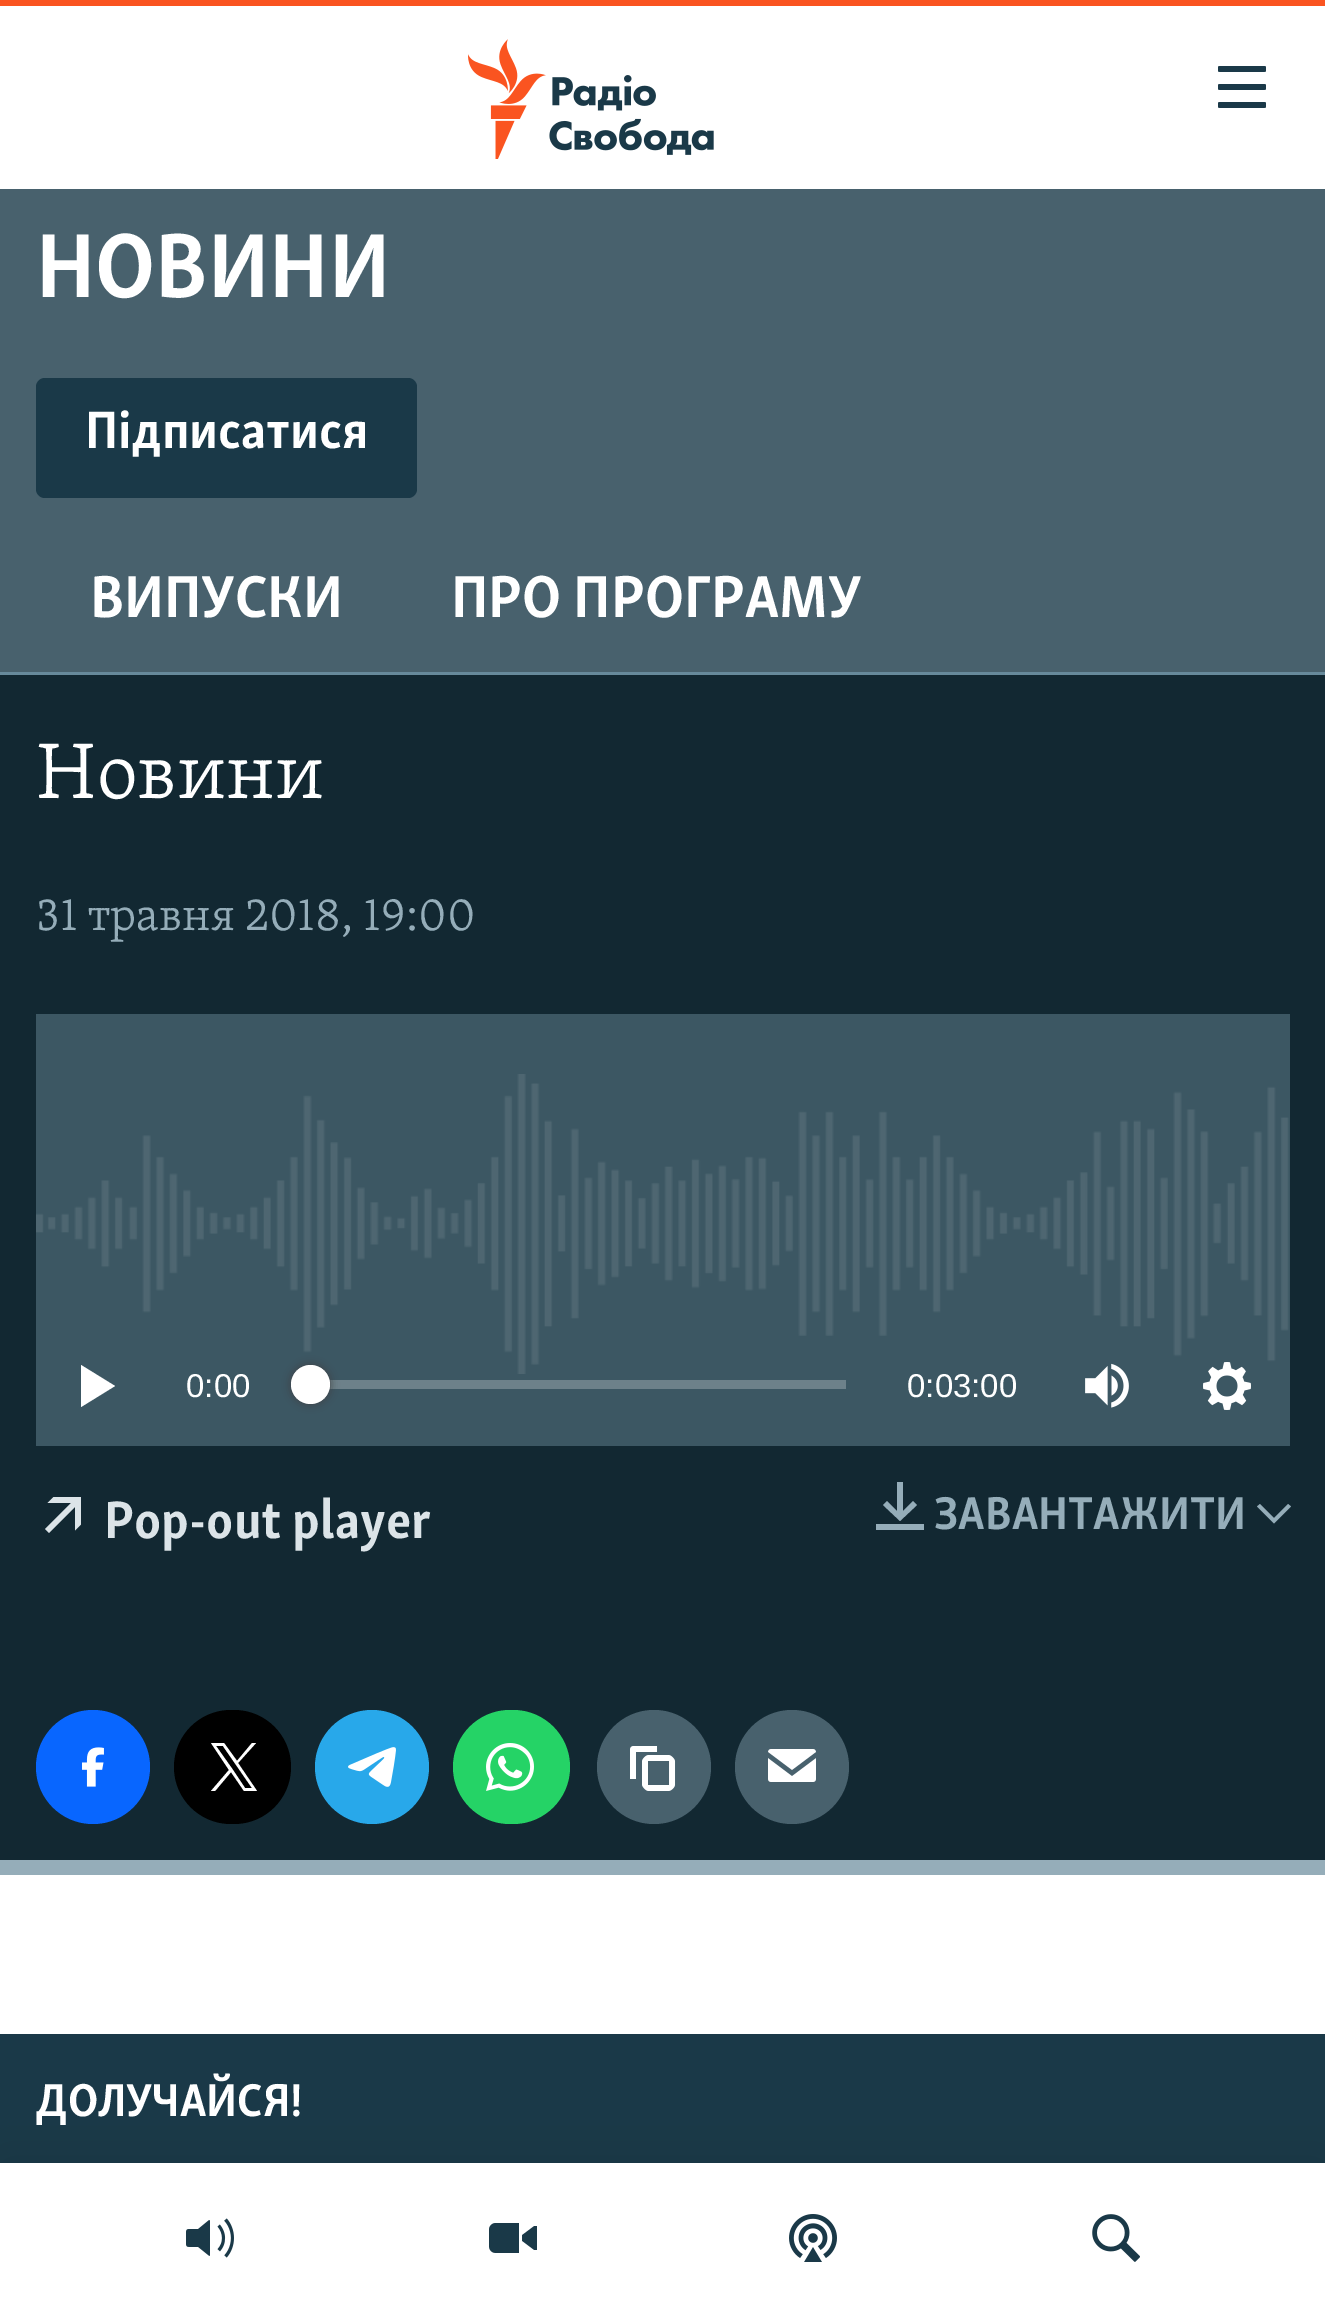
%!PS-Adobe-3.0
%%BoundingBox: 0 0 1325 2313
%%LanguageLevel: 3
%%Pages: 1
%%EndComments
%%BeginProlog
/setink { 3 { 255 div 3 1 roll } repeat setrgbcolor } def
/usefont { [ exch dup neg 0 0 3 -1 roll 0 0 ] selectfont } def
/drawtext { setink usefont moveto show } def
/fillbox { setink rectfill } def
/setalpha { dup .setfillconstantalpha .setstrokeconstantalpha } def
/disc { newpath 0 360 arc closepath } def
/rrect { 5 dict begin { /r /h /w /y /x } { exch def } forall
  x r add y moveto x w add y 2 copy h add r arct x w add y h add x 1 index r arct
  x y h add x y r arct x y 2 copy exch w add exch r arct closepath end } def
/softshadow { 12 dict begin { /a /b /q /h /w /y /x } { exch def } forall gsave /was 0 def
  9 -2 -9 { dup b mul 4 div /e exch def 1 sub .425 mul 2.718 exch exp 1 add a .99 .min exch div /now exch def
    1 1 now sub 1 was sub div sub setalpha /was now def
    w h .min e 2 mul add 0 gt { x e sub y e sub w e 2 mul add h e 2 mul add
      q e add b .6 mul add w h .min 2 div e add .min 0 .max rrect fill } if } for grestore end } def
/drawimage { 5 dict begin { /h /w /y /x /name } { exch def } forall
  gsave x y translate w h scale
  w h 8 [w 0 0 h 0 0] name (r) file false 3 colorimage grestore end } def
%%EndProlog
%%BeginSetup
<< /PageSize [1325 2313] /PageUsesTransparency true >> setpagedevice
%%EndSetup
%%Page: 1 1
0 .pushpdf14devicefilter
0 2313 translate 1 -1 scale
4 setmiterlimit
0 0 1325 2313 255 255 255 fillbox
0 0 1325 6 250 84 32 fillbox
(assets/img1.rgb) 468 39 246 120 drawimage
(assets/img2.rgb) 1218 66 48 42 drawimage
0 2034 1325 129 26 57 72 fillbox
0 0 0 setink
0 2163 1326 150 0 30 0.1 softshadow
0 2163 1325 150 255 255 255 fillbox
(assets/img3.rgb) 186 2218 48 40 drawimage
(assets/img4.rgb) 489 2223 48 30 drawimage
(assets/img5.rgb) 789 2214 48 48 drawimage
(assets/img6.rgb) 1092 2214 48 48 drawimage
0 189 1325 483 72 97 109 fillbox
(НОВИНИ) 36 297 /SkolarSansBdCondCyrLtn-Bold 93.5 255 255 255 drawtext
26 57 72 setink
36 378 381 120 9 rrect fill
(Підписатися) 85 448 /SkolarSansBdCondCyrLtn-Bold 54 255 255 255 drawtext
(ВИПУСКИ) 90 617 /SkolarSansBdCondCyrLtn-Bold 60.75 255 255 255 drawtext
(ПРО ПРОГРАМУ) 451 617 /SkolarSansBdCondCyrLtn-Bold 60.75 255 255 255 drawtext
0 675 1325 1185 18 40 50 fillbox
0 672 1325 3 103 138 155 fillbox
0 1860 1325 15 149 173 185 fillbox
(Новини) 36 798 /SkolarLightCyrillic-Light 81 255 255 255 drawtext
(31 травня 2018, 19:00) 36 930 /SkolarLightCyrillic-Light 47.25 149 173 185 drawtext
36 1014 1254 432 60 87 99 fillbox
(assets/img7.rgb) 36 1074 1253 300 drawimage
255 255 255 setink
81 1407 moveto 115 1386 lineto 81 1365 lineto closepath fill
(0:00) 186 1397 /LiberationSans-Regular 33 255 255 255 drawtext
329 1380 517 9 109 129 138 fillbox
65 65 68 setink
291 1365 39 39 19.5 4.5 1 softshadow
255 255 255 setink
310.5 1384.5 19.5 disc fill
(0:03:00) 907 1397 /LiberationSans-Regular 33 255 255 255 drawtext
(assets/img8.rgb) 1085 1363 44 45 drawimage
(assets/img9.rgb) 1203 1362 48 48 drawimage
220 228 232 setink
81 1497 moveto 53.5 1497 lineto 47.5 1503 lineto 71 1503 lineto 45 1529 lineto 49 1533 lineto 75 1507 lineto 75 1530.5 lineto 81 1524.5 lineto closepath fill
(Pop-out player) 104 1538 /SkolarSansBdCondCyrLtn-Bold 54 220 228 232 drawtext
149 173 185 setink
924 1524 moveto 924 1530 lineto 876 1530 lineto 876 1524 lineto closepath 917 1505 moveto 913 1501 lineto 903 1511 lineto 903 1482 lineto 897 1482 lineto 897 1511 lineto 887 1501 lineto 883 1505 lineto 900 1521 lineto closepath fill
(ЗАВАНТАЖИТИ) 934 1529 /SkolarSansBdCondCyrLtn-Bold 47.25 149 173 185 drawtext
1257 1506.5 moveto 1274 1523.5 lineto 1291 1506.5 lineto 1288 1504 lineto 1274 1518 lineto 1260 1504 lineto closepath fill
8 102 255 setink
93 1767 57 disc fill
(assets/img10.rgb) 82 1747 22 40 drawimage
0 0 0 setink
174 1710 117 114 57 rrect fill
255 255 255 setink
238 1763 moveto 256 1743 lineto 252 1743 lineto 237 1761 lineto 224 1743 lineto 211 1743 lineto 229 1770 lineto 211 1791 lineto 215 1791 lineto 231 1772 lineto 244 1791 lineto 257 1791 lineto closepath 233 1770 moveto 216 1746 lineto 223 1746 lineto 252 1788 lineto 245 1788 lineto closepath fill
40 168 234 setink
372 1767 57 disc fill
(assets/img11.rgb) 348 1747 48 40 drawimage
37 211 102 setink
453 1710 117 114 57 rrect fill
(assets/img12.rgb) 486 1743 48 48 drawimage
72 97 109 setink
654 1767 57 disc fill
(assets/img13.rgb) 630 1746 46 45 drawimage
792 1767 57 disc fill
(assets/img14.rgb) 768 1749 48 33 drawimage
(ДОЛУЧАЙСЯ!) 36 2116 /SkolarSansBdCondCyrLtn-Bold 47.25 255 255 255 drawtext
.poppdf14devicefilter showpage
%%EOF
